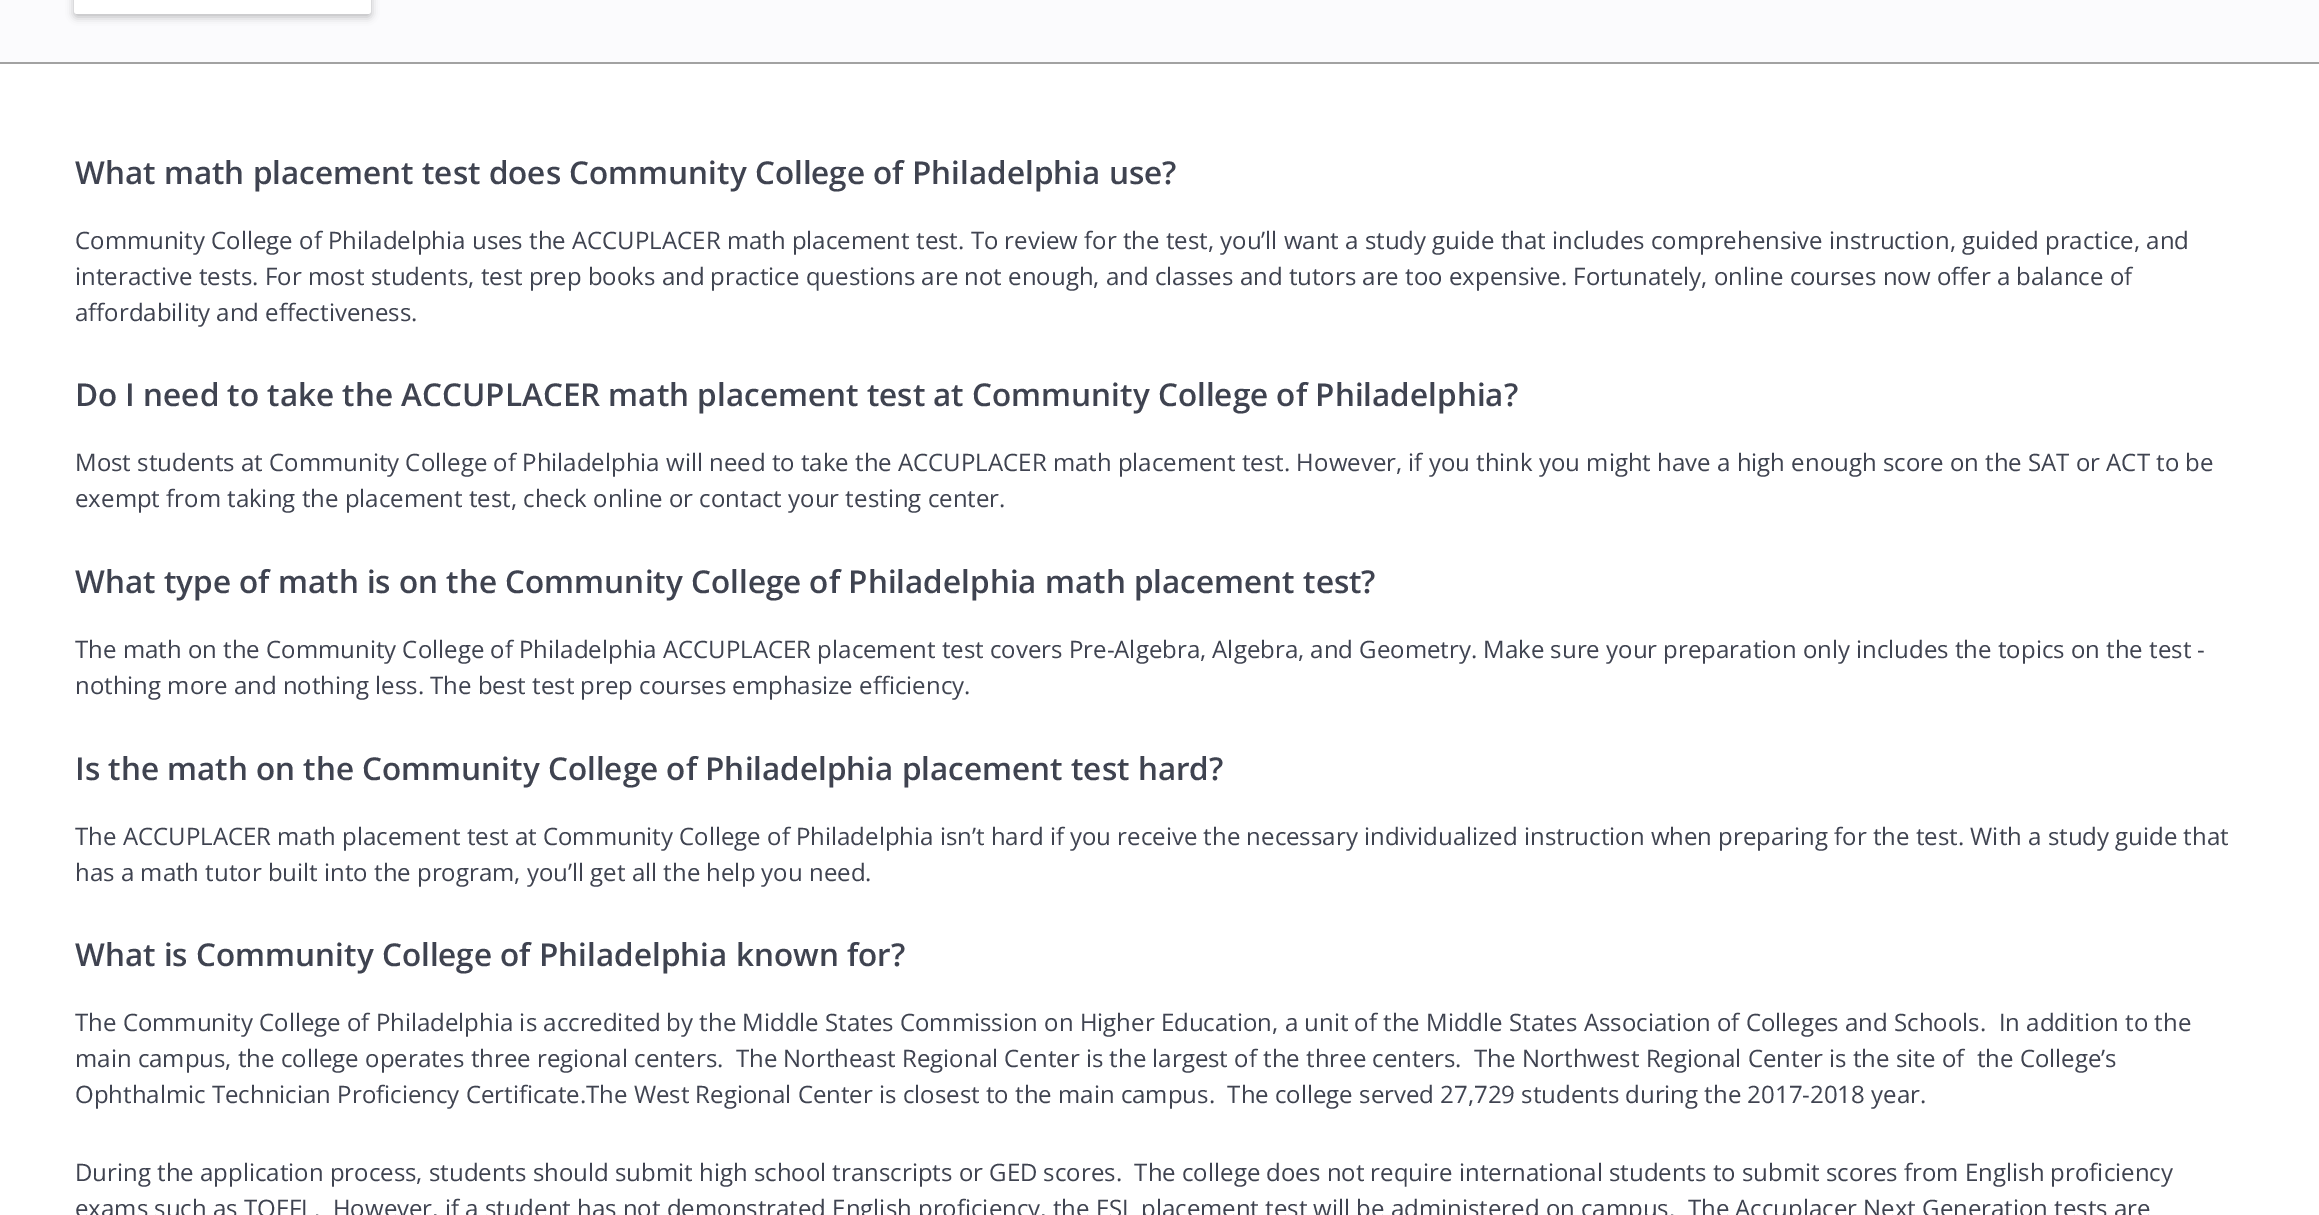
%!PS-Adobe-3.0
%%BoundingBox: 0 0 2319 1215
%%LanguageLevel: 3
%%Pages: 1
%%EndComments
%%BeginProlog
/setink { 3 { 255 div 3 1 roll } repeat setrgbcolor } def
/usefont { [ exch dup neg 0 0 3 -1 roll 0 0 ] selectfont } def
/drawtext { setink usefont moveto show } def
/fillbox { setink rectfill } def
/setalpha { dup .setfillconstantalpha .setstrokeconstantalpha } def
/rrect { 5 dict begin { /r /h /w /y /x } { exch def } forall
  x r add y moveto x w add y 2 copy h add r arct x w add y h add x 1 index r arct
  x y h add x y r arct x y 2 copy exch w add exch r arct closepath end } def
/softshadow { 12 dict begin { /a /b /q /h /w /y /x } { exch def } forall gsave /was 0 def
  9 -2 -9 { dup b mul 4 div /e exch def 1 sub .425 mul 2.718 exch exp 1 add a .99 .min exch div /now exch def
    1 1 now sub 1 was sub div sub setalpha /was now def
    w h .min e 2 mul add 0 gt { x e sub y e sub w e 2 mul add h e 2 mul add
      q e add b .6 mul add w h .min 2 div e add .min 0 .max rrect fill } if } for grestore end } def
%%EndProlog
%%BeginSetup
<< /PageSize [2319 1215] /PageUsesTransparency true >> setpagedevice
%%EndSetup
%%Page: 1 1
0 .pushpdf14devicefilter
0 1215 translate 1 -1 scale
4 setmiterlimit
0 0 2319 1215 255 255 255 fillbox
0 0 2319 62 251 251 253 fillbox
0 0 0 setink
74 -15 297 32 3 4 0.26 softshadow
255 255 255 setink
74 -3 moveto 371 -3 lineto 371 11 lineto 371 12.5 369.5 14 368 14 curveto 77 14 lineto 75.5 14 74 12.5 74 11 curveto closepath fill
0 62 2319 2 162 162 162 fillbox
(What math placement test does Community College of Philadelphia use?) 75 184 /OpenSans-SemiBold 31.5 63 67 80 drawtext
(Community College of Philadelphia uses the ACCUPLACER math placement test. To review for the test, you’ll want a study guide that includes comprehensive instruction, guided practice, and) 75 249 /OpenSans-Regular 24 63 67 80 drawtext
(interactive tests. For most students, test prep books and practice questions are not enough, and classes and tutors are too expensive. Fortunately, online courses now offer a balance of) 75 285 /OpenSans-Regular 24 63 67 80 drawtext
(affordability and effectiveness.) 75 321 /OpenSans-Regular 24 63 67 80 drawtext
(Do I need to take the ACCUPLACER math placement test at Community College of Philadelphia?) 75 406 /OpenSans-SemiBold 31.5 63 67 80 drawtext
(Most students at Community College of Philadelphia will need to take the ACCUPLACER math placement test. However, if you think you might have a high enough score on the SAT or ACT to be) 75 471 /OpenSans-Regular 24 63 67 80 drawtext
(exempt from taking the placement test, check online or contact your testing center.) 75 507 /OpenSans-Regular 24 63 67 80 drawtext
(What type of math is on the Community College of Philadelphia math placement test?) 75 593 /OpenSans-SemiBold 31.5 63 67 80 drawtext
(The math on the Community College of Philadelphia ACCUPLACER placement test covers Pre-Algebra, Algebra, and Geometry. Make sure your preparation only includes the topics on the test -) 75 658 /OpenSans-Regular 24 63 67 80 drawtext
(nothing more and nothing less. The best test prep courses emphasize efficiency.) 75 694 /OpenSans-Regular 24 63 67 80 drawtext
(Is the math on the Community College of Philadelphia placement test hard?) 75 780 /OpenSans-SemiBold 31.5 63 67 80 drawtext
(The ACCUPLACER math placement test at Community College of Philadelphia isn’t hard if you receive the necessary individualized instruction when preparing for the test. With a study guide that) 75 845 /OpenSans-Regular 24 63 67 80 drawtext
(has a math tutor built into the program, you’ll get all the help you need.) 75 881 /OpenSans-Regular 24 63 67 80 drawtext
(What is Community College of Philadelphia known for?) 75 966 /OpenSans-SemiBold 31.5 63 67 80 drawtext
(The Community College of Philadelphia is accredited by the Middle States Commission on Higher Education, a unit of the Middle States Association of Colleges and Schools.  In addition to the) 75 1031 /OpenSans-Regular 24 63 67 80 drawtext
(main campus, the college operates three regional centers.  The Northeast Regional Center is the largest of the three centers.  The Northwest Regional Center is the site of  the College’s) 75 1067 /OpenSans-Regular 24 63 67 80 drawtext
(Ophthalmic Technician Proficiency Certificate.The West Regional Center is closest to the main campus.  The college served 27,729 students during the 2017-2018 year.) 75 1103 /OpenSans-Regular 24 63 67 80 drawtext
(During the application process, students should submit high school transcripts or GED scores.  The college does not require international students to submit scores from English proficiency) 75 1181 /OpenSans-Regular 24 63 67 80 drawtext
(exams such as TOEFL.  However, if a student has not demonstrated English proficiency, the ESL placement test will be administered on campus.  The Accuplacer Next Generation tests are) 75 1217 /OpenSans-Regular 24 63 67 80 drawtext
.poppdf14devicefilter showpage
%%EOF
